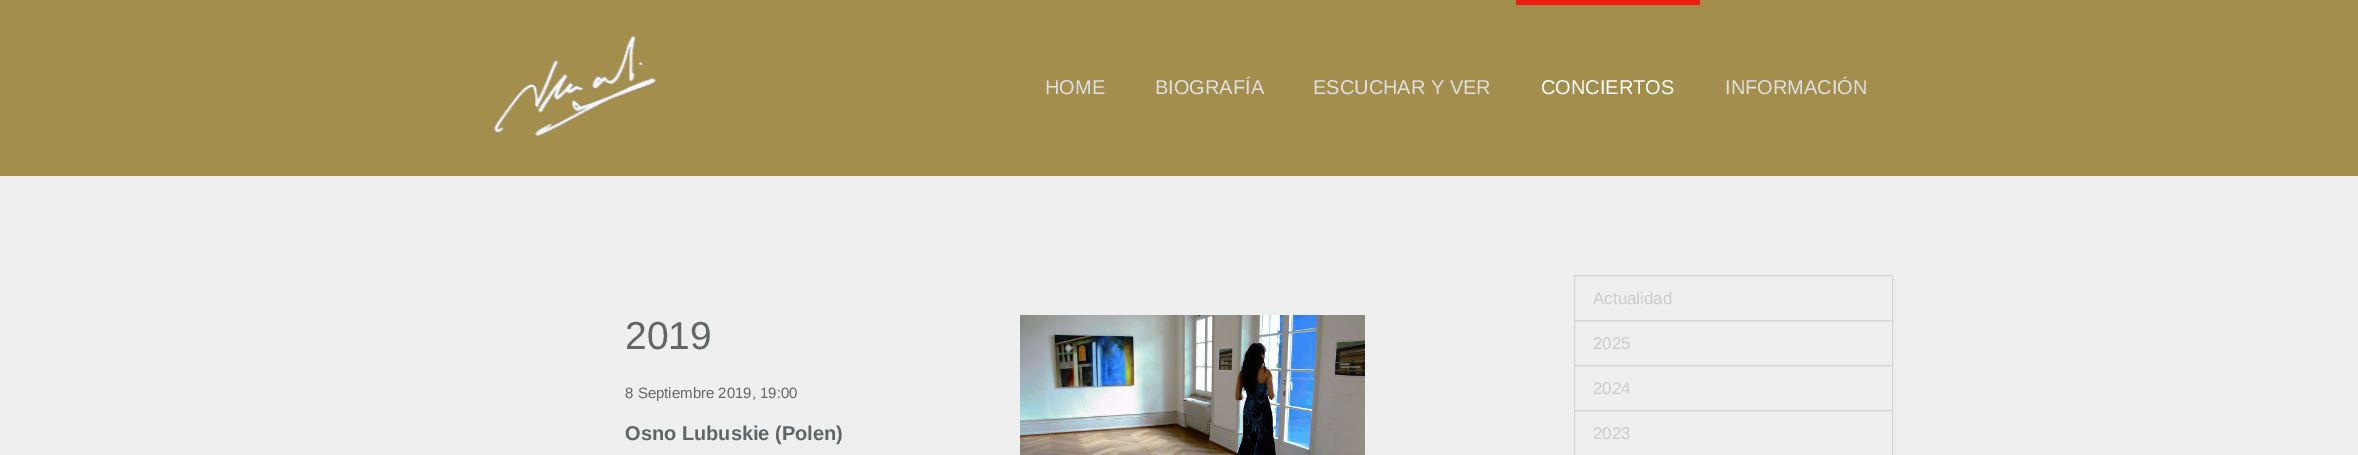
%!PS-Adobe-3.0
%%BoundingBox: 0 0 2358 455
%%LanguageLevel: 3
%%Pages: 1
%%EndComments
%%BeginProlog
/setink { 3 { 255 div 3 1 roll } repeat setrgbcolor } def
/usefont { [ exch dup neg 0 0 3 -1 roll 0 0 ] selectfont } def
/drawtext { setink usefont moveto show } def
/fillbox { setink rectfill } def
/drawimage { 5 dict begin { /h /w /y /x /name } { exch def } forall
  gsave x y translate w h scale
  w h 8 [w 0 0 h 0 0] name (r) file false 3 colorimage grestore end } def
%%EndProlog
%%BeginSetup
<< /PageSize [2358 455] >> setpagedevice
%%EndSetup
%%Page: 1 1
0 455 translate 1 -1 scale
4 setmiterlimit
0 0 2358 455 239 239 239 fillbox
0 0 2358 176 163 142 77 fillbox
(assets/img1.rgb) 493 35 164 101 drawimage
(HOME) 1045 94 /LiberationSans-Regular 20 224 224 224 drawtext
(BIOGRAFÍA) 1155 94 /LiberationSans-Regular 20 224 224 224 drawtext
(ESCUCHAR Y VER) 1313 94 /LiberationSans-Regular 20 224 224 224 drawtext
1516 0 184 5 235 29 16 fillbox
(CONCIERTOS) 1541 94 /LiberationSans-Regular 20 255 255 255 drawtext
(INFORMACIÓN) 1725 94 /LiberationSans-Regular 20 224 224 224 drawtext
(2019) 625 349 /LiberationSans-Regular 39 96 102 104 drawtext
(8 Septiembre 2019, 19:00) 625 398 /LiberationSans-Regular 15 96 102 104 drawtext
(Osno Lubuskie \(Polen\)) 625 440 /LiberationSans-Bold 20 96 102 104 drawtext
(assets/img2.rgb) 1020 315 345 140 drawimage
214 214 214 setink
1574.5 275.5 318 45 rectstroke
(Actualidad) 1593 304 /LiberationSans-Regular 17 200 203 204 drawtext
214 214 214 setink
1574.5 320.5 318 45 rectstroke
(2025) 1593 349 /LiberationSans-Regular 17 200 203 204 drawtext
214 214 214 setink
1574.5 365.5 318 45 rectstroke
(2024) 1593 394 /LiberationSans-Regular 17 200 203 204 drawtext
214 214 214 setink
1574.5 410.5 318 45 rectstroke
(2023) 1593 439 /LiberationSans-Regular 17 200 203 204 drawtext
showpage
%%EOF
